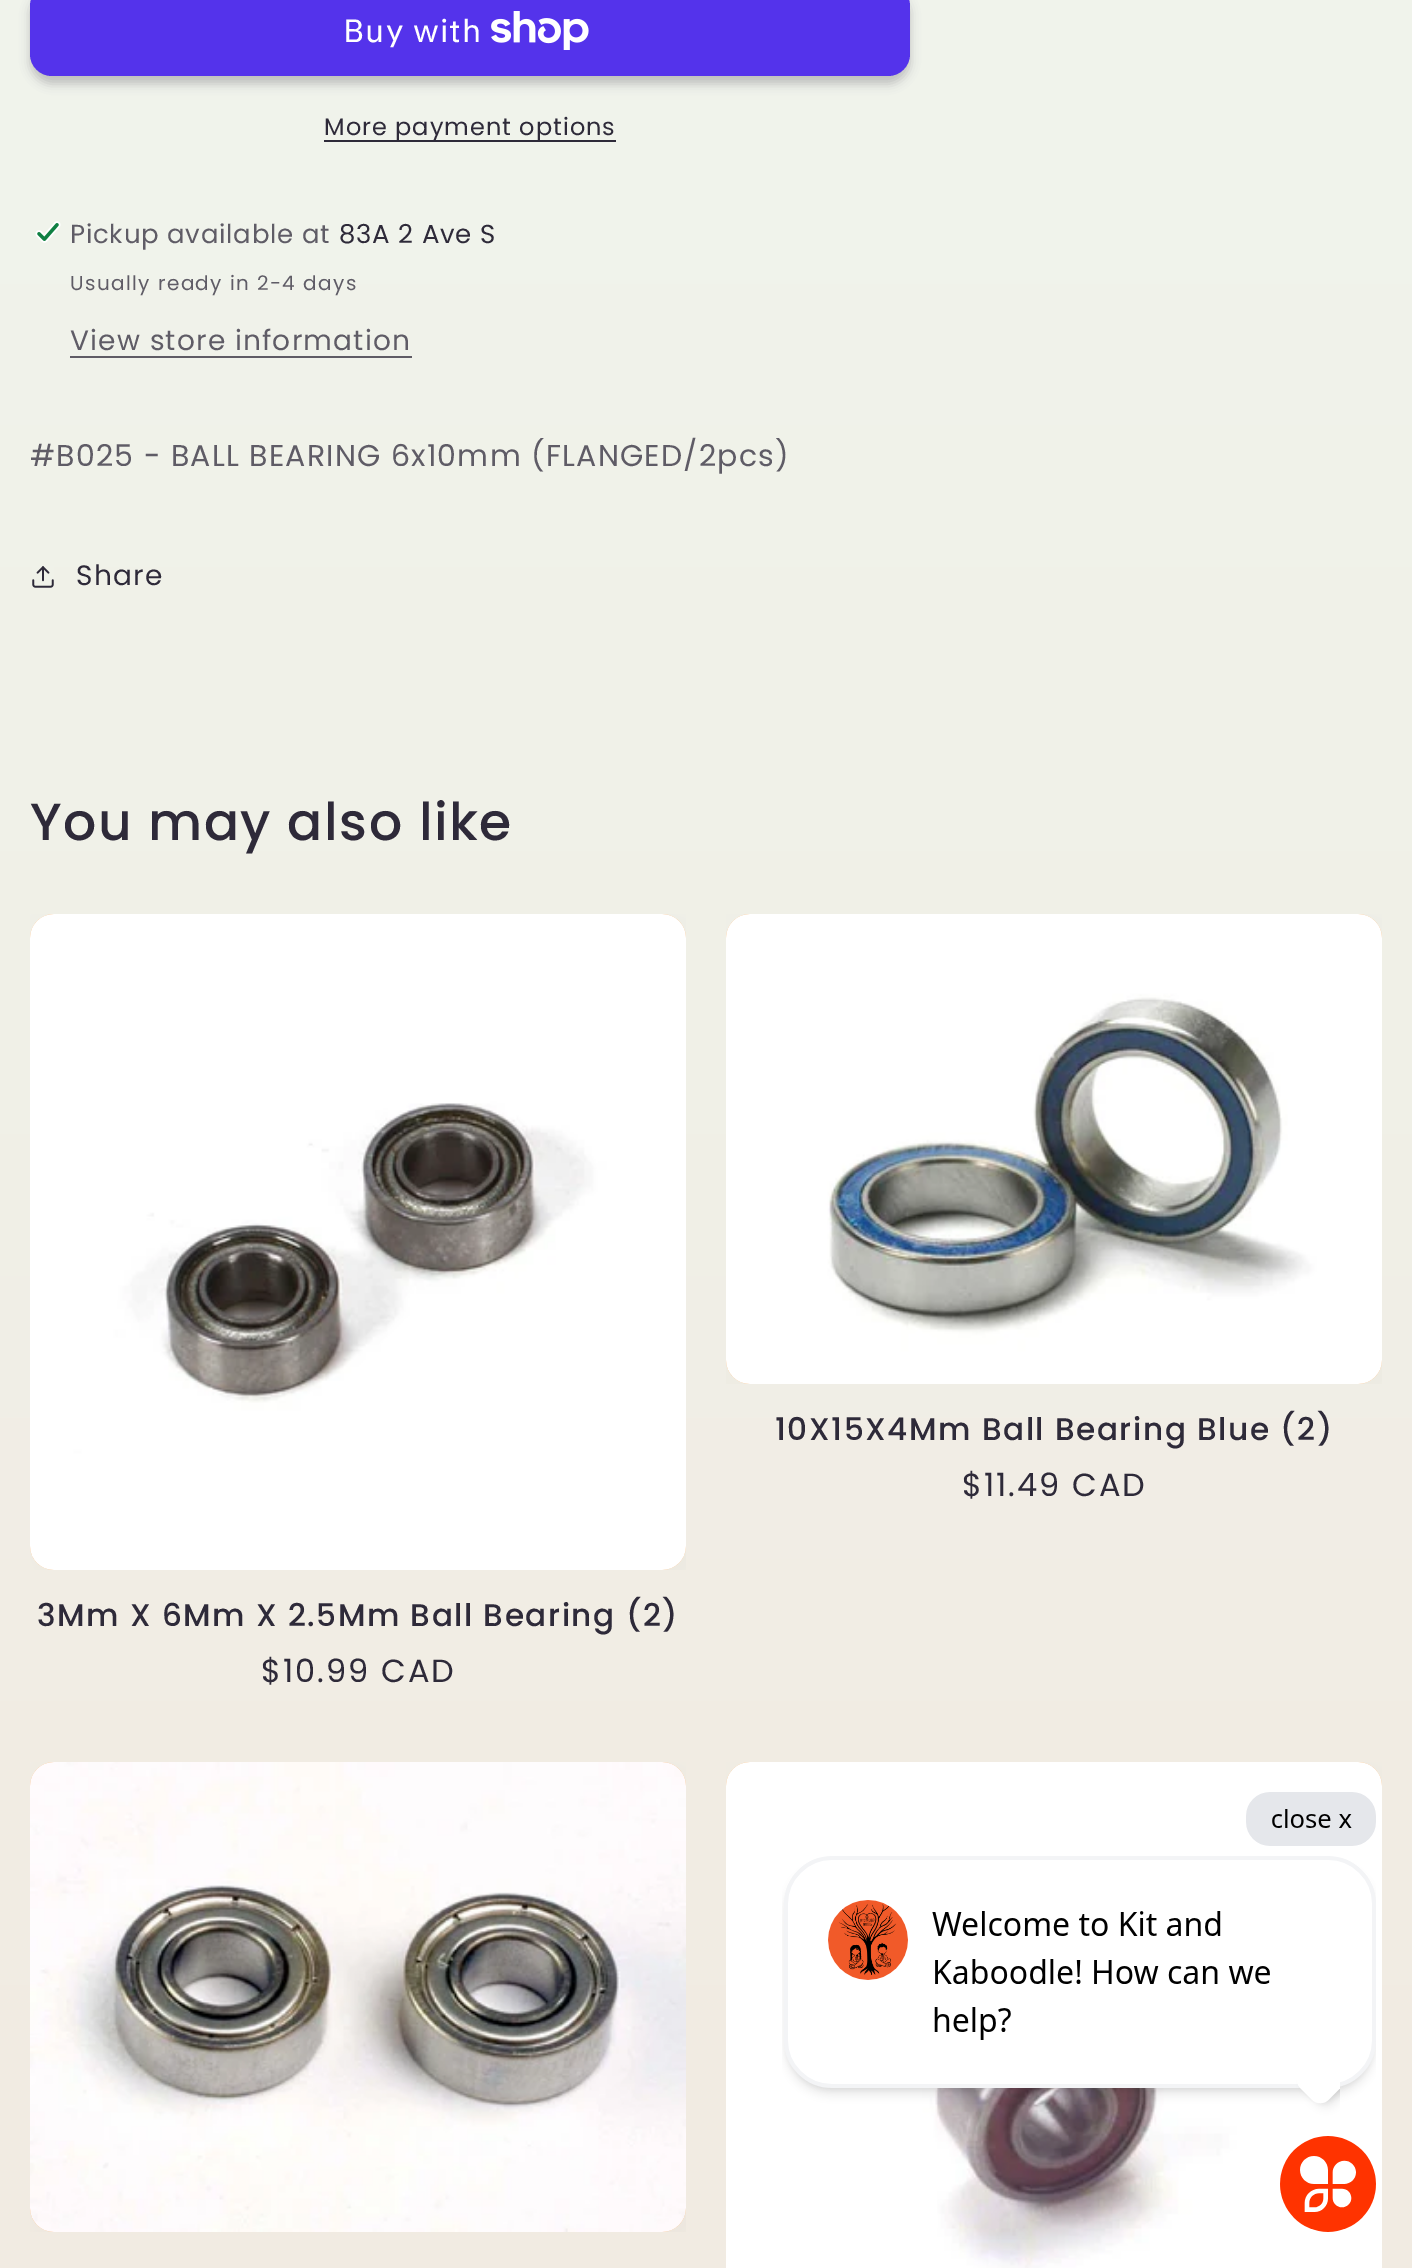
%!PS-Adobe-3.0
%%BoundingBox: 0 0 1412 2268
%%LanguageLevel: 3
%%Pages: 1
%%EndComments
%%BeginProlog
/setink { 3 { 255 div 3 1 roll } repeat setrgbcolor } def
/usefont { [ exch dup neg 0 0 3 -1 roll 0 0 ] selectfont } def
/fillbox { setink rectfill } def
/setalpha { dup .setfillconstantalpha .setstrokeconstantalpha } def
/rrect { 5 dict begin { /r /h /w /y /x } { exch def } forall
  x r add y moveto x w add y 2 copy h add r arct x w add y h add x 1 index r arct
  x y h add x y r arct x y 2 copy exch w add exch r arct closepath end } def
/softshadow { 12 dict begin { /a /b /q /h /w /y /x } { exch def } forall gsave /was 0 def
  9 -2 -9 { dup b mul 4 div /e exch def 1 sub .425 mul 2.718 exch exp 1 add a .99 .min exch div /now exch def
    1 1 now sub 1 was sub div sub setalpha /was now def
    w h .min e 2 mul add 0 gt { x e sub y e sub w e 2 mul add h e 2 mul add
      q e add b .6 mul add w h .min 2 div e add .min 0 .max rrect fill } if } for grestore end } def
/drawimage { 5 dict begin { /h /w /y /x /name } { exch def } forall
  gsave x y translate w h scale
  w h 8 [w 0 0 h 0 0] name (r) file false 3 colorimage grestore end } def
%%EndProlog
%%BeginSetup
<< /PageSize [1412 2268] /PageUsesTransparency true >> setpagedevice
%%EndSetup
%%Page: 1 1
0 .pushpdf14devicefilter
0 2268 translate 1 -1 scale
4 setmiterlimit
0 0 1412 2268 255 255 255 fillbox
gsave 0 0 moveto 1412 0 lineto 1412 2268 lineto 0 2268 lineto closepath clip newpath
<< /ShadingType 2 /ColorSpace /DeviceRGB /Coords [706 0 706 2268] /Extend [true true] /Function << /FunctionType 2 /Domain [0 1] /C0 [0.941 0.957 0.925] /C1 [0.945 0.922 0.886] /N 1 >> >> shfill grestore
46 42 57 setink
30 -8 880 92 22 5 0.25 softshadow
84 51 235 setink
30 -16 880 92 22 rrect fill
/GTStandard-Regular 32 usefont
255 255 255 setink
343 42 moveto 1.2 0 (Buy with) ashow
(assets/img1.rgb) 491 11 98 39 drawimage
324 140 292 2 46 42 57 fillbox
/Poppins-Regular 24 usefont
324 135 moveto 1 0 (More payment options) ashow
(assets/img2.rgb) 35 221 26 22 drawimage
/Poppins-Regular 26 usefont
95 92 102 setink
70 243 moveto 0.75 0 (Pickup available at) ashow
46 42 57 setink
339 243 moveto 0.75 0 (83A 2 Ave S) ashow
/Poppins-Regular 20 usefont
95 92 102 setink
70 290 moveto 1.4 0 (Usually ready in 2-4 days) ashow
/Poppins-Regular 28 usefont
70 350 moveto 1.2 0 (View store information) ashow
70 356 342 2 95 92 101 fillbox
/Poppins-Regular 30 usefont
95 92 102 setink
30 466 moveto 1.2 0 (#B025 - BALL BEARING 6x10mm \(FLANGED/2pcs\)) ashow
(assets/img3.rgb) 32 566 22 22 drawimage
/Poppins-Regular 28 usefont
46 42 57 setink
76 585 moveto 1.2 0 (Share) ashow
/Poppins-Medium 52 usefont
30 840 moveto 1.55 0 (You may also like) ashow
(assets/img4.rgb) 726 914 656 470 drawimage
/Poppins-Medium 31.2 usefont
775 1440 moveto 1.55 0 (10X15X4Mm Ball Bearing Blue \(2\)) ashow
/Poppins-Regular 32 usefont
962 1496 moveto 2 0 ($11.49 CAD) ashow
(assets/img5.rgb) 30 914 656 656 drawimage
/Poppins-Medium 31.2 usefont
37 1626 moveto 1.55 0 (3Mm X 6Mm X 2.5Mm Ball Bearing \(2\)) ashow
/Poppins-Regular 32 usefont
261 1682 moveto 2 0 ($10.99 CAD) ashow
(assets/img6.rgb) 30 1762 656 470 drawimage
(assets/img7.rgb) 726 1762 656 506 drawimage
(assets/img8.rgb) 782 1792 594 440 drawimage
.poppdf14devicefilter showpage
%%EOF
